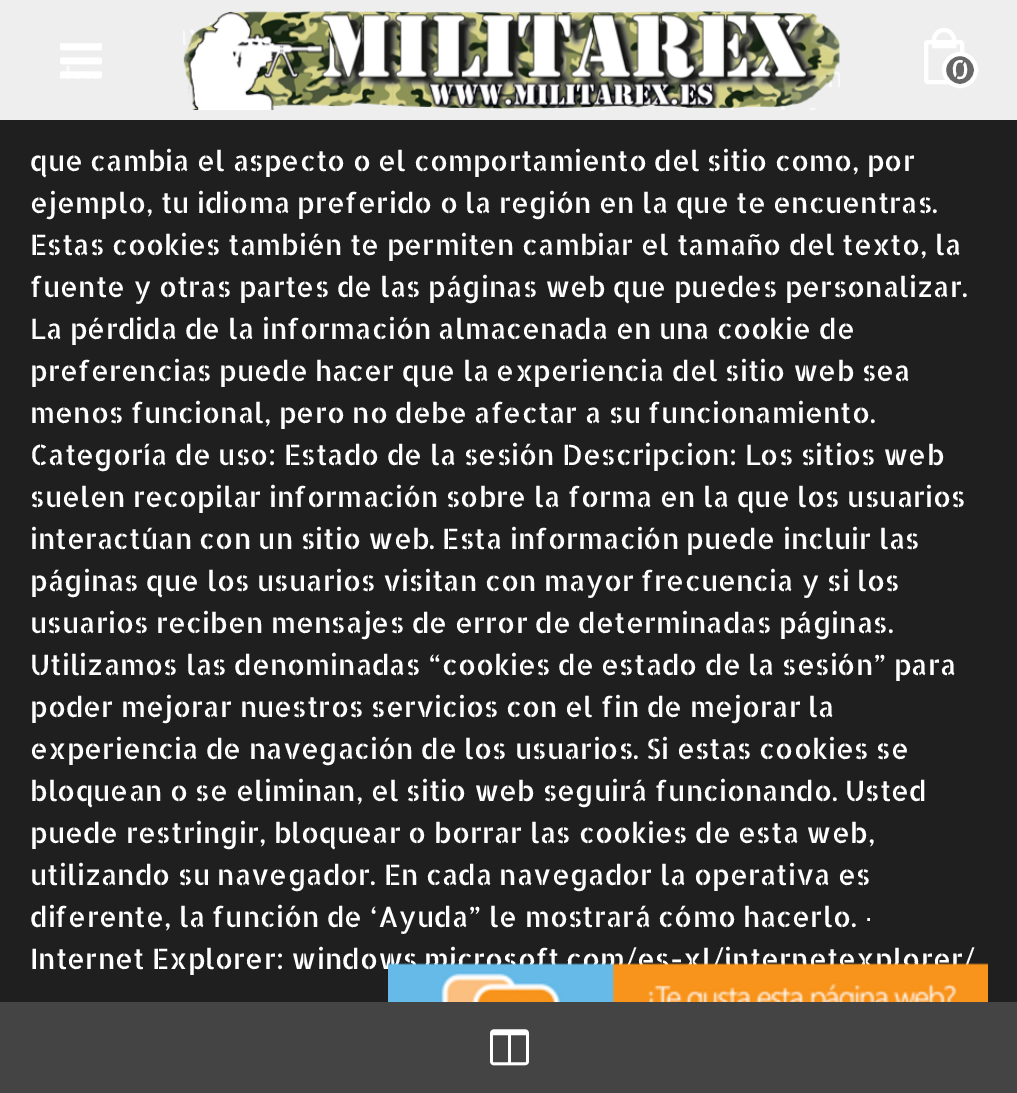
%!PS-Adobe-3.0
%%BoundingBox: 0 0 1017 1093
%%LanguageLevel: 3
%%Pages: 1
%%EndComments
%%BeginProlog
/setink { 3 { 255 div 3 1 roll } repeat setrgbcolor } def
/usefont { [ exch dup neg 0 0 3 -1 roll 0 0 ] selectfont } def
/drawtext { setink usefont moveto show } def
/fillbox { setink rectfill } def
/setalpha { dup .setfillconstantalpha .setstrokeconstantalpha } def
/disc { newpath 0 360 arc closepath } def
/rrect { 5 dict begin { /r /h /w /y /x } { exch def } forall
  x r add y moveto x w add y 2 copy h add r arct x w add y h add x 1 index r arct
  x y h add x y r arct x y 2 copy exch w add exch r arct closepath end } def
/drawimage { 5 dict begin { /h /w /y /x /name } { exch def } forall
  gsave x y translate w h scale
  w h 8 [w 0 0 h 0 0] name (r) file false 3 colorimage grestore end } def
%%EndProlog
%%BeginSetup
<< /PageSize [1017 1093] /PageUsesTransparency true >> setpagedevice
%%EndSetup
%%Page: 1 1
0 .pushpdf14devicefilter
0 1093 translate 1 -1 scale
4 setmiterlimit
0 0 1017 1093 31 31 31 fillbox
0.95 setalpha
0 0 1017 120 249 249 249 fillbox
1 setalpha
(assets/img1.rgb) 60 43 42 36 drawimage
(assets/img2.rgb) 183 11 657 99 drawimage
255 255 255 setink
4 setlinewidth
926 42 36 40 2 rrect stroke
944 30 moveto 949.5 30 954 34.5 954 40 curveto 954 46 lineto 934 46 lineto 934 40 lineto 934 34.5 938.5 30 944 30 curveto closepath stroke
102 102 102 setink
960 70 16 disc gsave fill grestore
255 255 255 setink
stroke
(0) 951 79 /AllertaStencil-Regular 26 255 255 255 drawtext
(que cambia el aspecto o el comportamiento del sitio como, por) 30 171 /AllertaStencil-Regular 28 255 255 255 drawtext
(ejemplo, tu idioma preferido o la región en la que te encuentras.) 30 213 /AllertaStencil-Regular 28 255 255 255 drawtext
(Estas cookies también te permiten cambiar el tamaño del texto, la) 30 255 /AllertaStencil-Regular 28 255 255 255 drawtext
(fuente y otras partes de las páginas web que puedes personalizar.) 30 297 /AllertaStencil-Regular 28 255 255 255 drawtext
(La pérdida de la información almacenada en una cookie de) 30 339 /AllertaStencil-Regular 28 255 255 255 drawtext
(preferencias puede hacer que la experiencia del sitio web sea) 30 381 /AllertaStencil-Regular 28 255 255 255 drawtext
(menos funcional, pero no debe afectar a su funcionamiento.) 30 423 /AllertaStencil-Regular 28 255 255 255 drawtext
(Categoría de uso: Estado de la sesión Descripcion: Los sitios web) 30 465 /AllertaStencil-Regular 28 255 255 255 drawtext
(suelen recopilar información sobre la forma en la que los usuarios) 30 507 /AllertaStencil-Regular 28 255 255 255 drawtext
(interactúan con un sitio web. Esta información puede incluir las) 30 549 /AllertaStencil-Regular 28 255 255 255 drawtext
(páginas que los usuarios visitan con mayor frecuencia y si los) 30 591 /AllertaStencil-Regular 28 255 255 255 drawtext
(usuarios reciben mensajes de error de determinadas páginas.) 30 633 /AllertaStencil-Regular 28 255 255 255 drawtext
(Utilizamos las denominadas “cookies de estado de la sesión” para) 30 675 /AllertaStencil-Regular 28 255 255 255 drawtext
(poder mejorar nuestros servicios con el fin de mejorar la) 30 717 /AllertaStencil-Regular 28 255 255 255 drawtext
(experiencia de navegación de los usuarios. Si estas cookies se) 30 759 /AllertaStencil-Regular 28 255 255 255 drawtext
(bloquean o se eliminan, el sitio web seguirá funcionando. Usted) 30 801 /AllertaStencil-Regular 28 255 255 255 drawtext
(puede restringir, bloquear o borrar las cookies de esta web,) 30 843 /AllertaStencil-Regular 28 255 255 255 drawtext
(utilizando su navegador. En cada navegador la operativa es) 30 885 /AllertaStencil-Regular 28 255 255 255 drawtext
(diferente, la función de ‘Ayuda” le mostrará cómo hacerlo.) 30 927 /AllertaStencil-Regular 28 255 255 255 drawtext
(·) 864 927 /LiberationSans-Regular 28 255 255 255 drawtext
(Internet Explorer: windows.microsoft.com/es-xl/internetexplorer/) 30 969 /AllertaStencil-Regular 28 255 255 255 drawtext
(assets/img3.rgb) 388 963 600 39 drawimage
0 1002 1017 91 68 68 68 fillbox
(assets/img4.rgb) 490 1029 39 37 drawimage
.poppdf14devicefilter showpage
%%EOF
